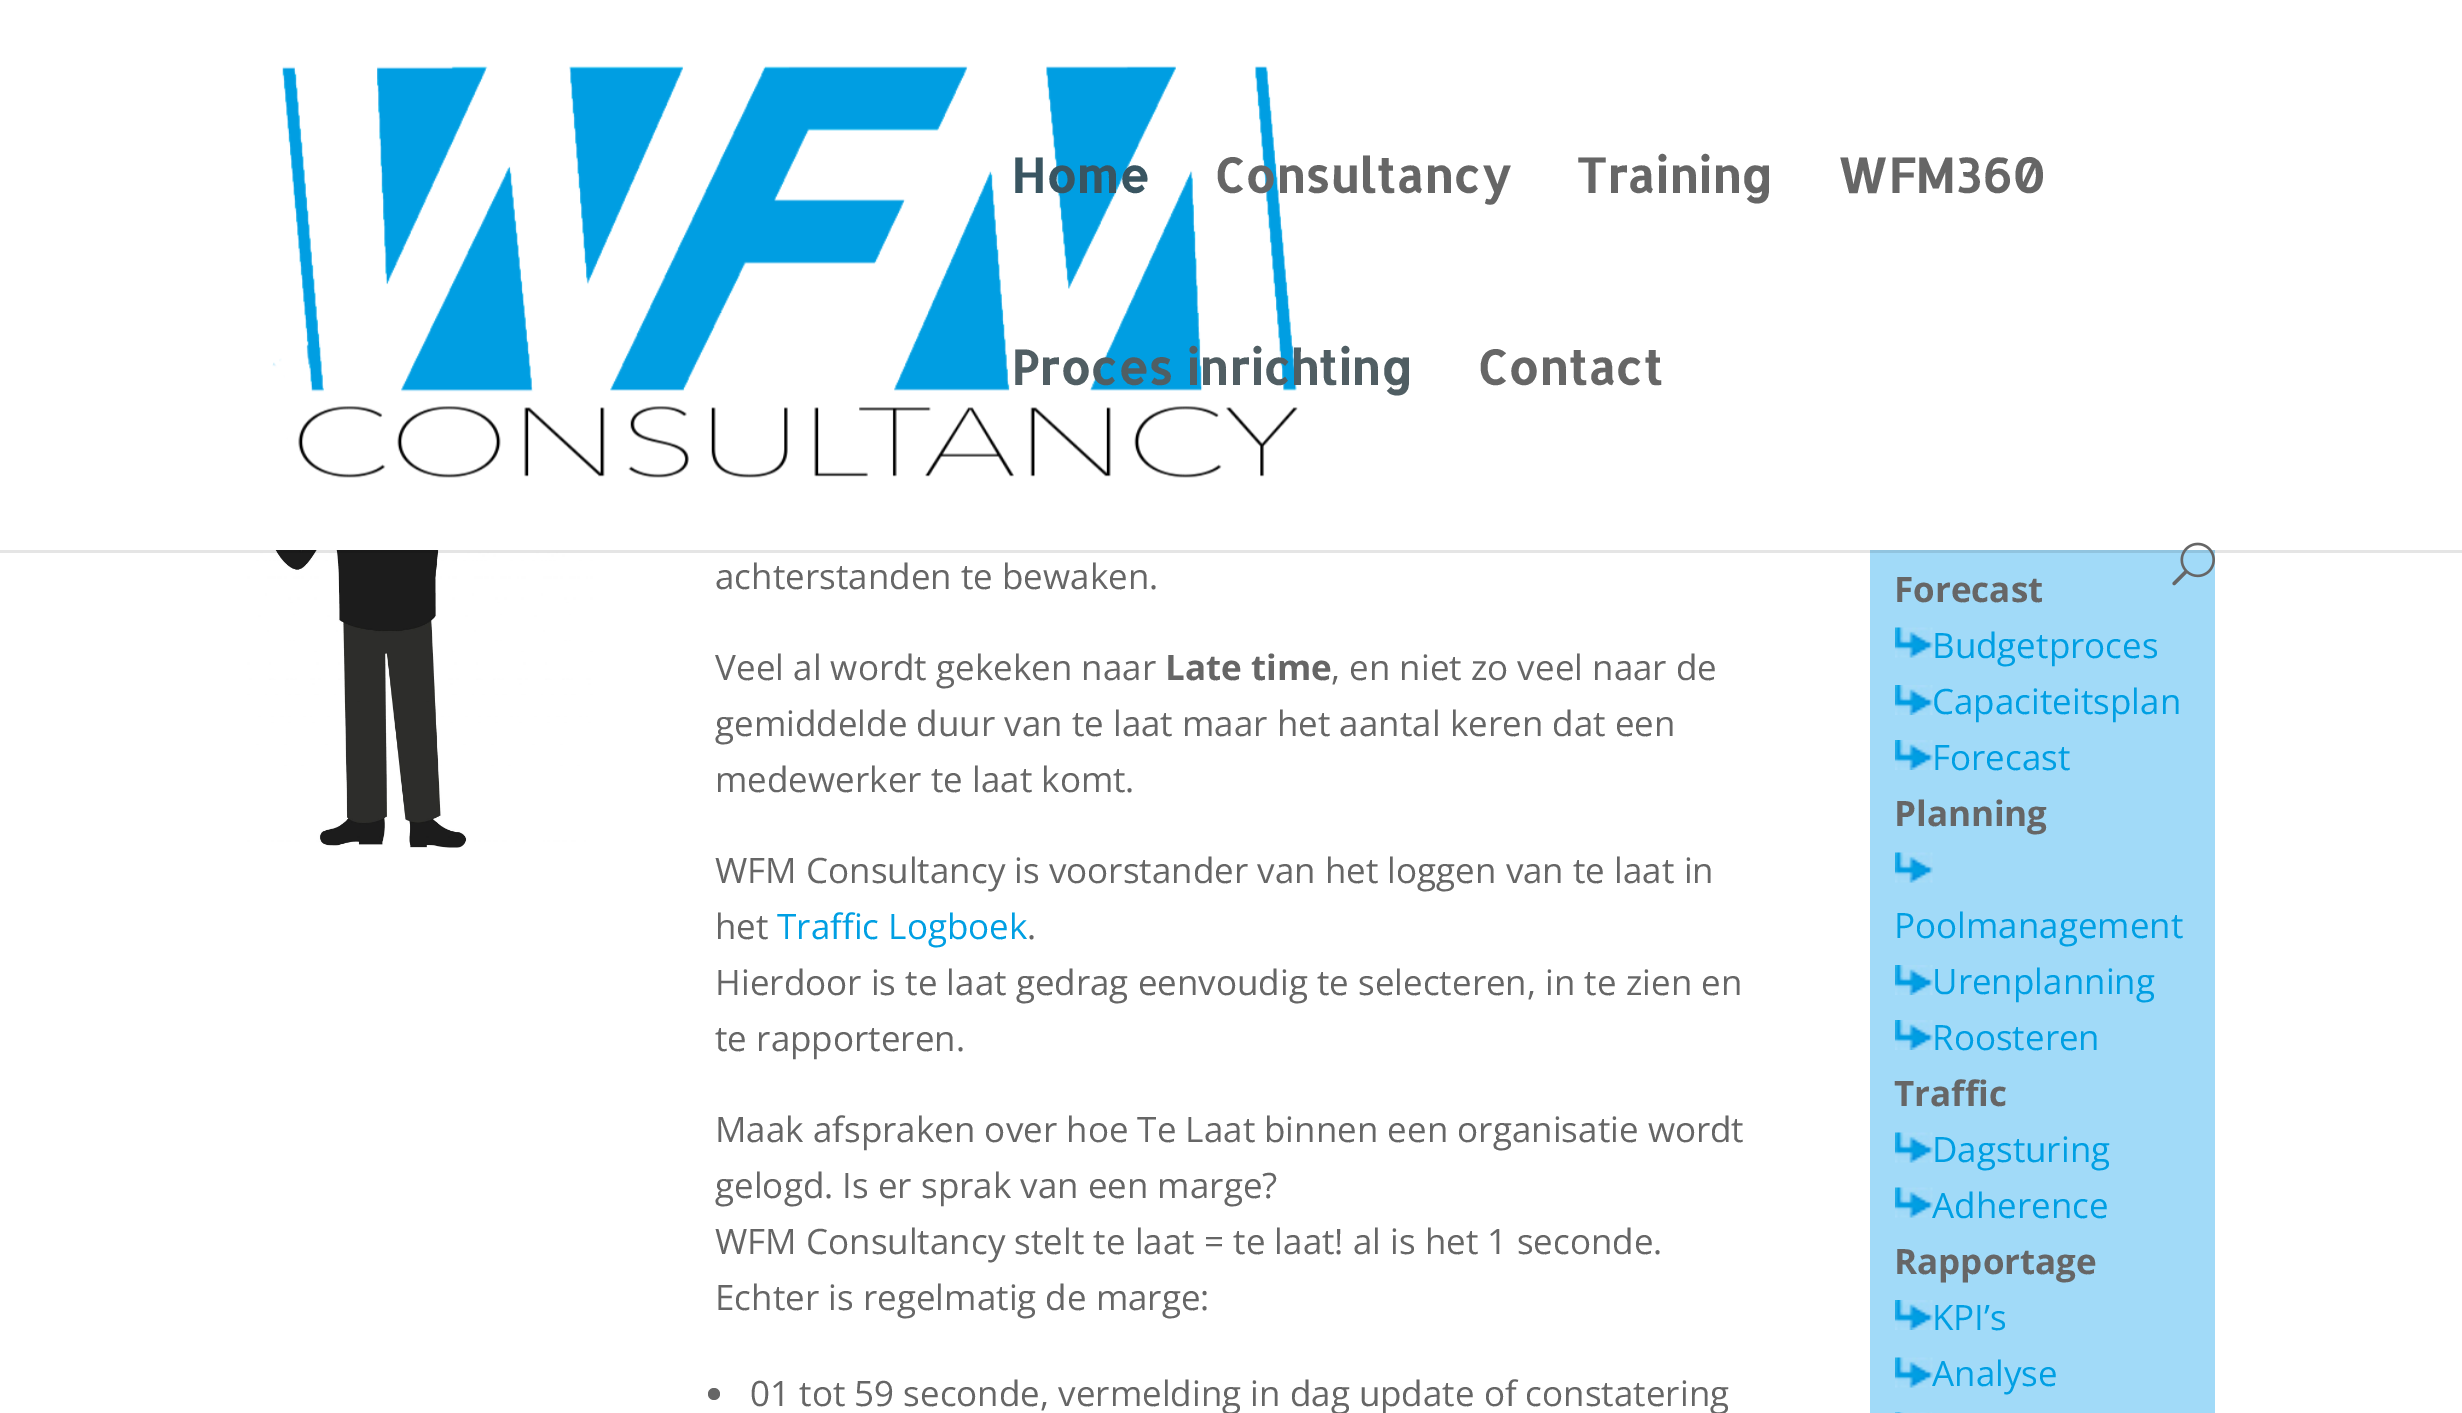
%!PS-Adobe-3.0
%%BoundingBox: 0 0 2462 1413
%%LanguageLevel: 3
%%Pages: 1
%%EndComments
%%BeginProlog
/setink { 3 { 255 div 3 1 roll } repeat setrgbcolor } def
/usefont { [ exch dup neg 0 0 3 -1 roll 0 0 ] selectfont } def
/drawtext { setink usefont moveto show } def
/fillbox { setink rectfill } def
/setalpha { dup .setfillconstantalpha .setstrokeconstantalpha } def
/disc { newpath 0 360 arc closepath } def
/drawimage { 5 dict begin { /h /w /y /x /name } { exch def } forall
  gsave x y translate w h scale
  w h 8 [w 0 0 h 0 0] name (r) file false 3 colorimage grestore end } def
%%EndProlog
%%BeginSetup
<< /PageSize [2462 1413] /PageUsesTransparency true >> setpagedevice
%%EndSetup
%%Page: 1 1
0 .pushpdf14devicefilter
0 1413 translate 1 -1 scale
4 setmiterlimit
0 0 2462 1413 255 255 255 fillbox
(assets/img3.rgb) 247 550 346 298 drawimage
1870 550 345 863 161 218 248 fillbox
0.1 setalpha
0 0 0 setink
0 550 moveto 0 553 lineto 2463 553 lineto 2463 3 lineto 2462 3 lineto 2462 550 lineto closepath fill
1 setalpha
(assets/img1.rgb) 272 66 1026 412 drawimage
(Home) 1011 193 /Allerta-Bold 47.5 57 85 97 drawtext
(Consultancy) 1214 193 /Allerta-Bold 47.5 102 102 102 drawtext
(Training) 1576 193 /Allerta-Bold 47.5 102 102 102 drawtext
(WFM360) 1837 193 /Allerta-Bold 47.5 102 102 102 drawtext
(Proces inrichting) 1011 385 /Allerta-Bold 47.5 80 94 99 drawtext
(Contact) 1477 385 /Allerta-Bold 47.5 102 102 102 drawtext
(assets/img2.rgb) 2172 542 43 44 drawimage
(achterstanden te bewaken.) 715 589 /OpenSans-Regular 35 102 102 102 drawtext
(Veel al wordt gekeken naar) 715 680 /OpenSans-Regular 35 102 102 102 drawtext
(Late time) 1165 680 /OpenSans-Bold 35 102 102 102 drawtext
(, en niet zo veel naar de) 1331 680 /OpenSans-Regular 35 102 102 102 drawtext
(gemiddelde duur van te laat maar het aantal keren dat een) 715 736 /OpenSans-Regular 35 102 102 102 drawtext
(medewerker te laat komt.) 715 792 /OpenSans-Regular 35 102 102 102 drawtext
(WFM Consultancy is voorstander van het loggen van te laat in) 715 883 /OpenSans-Regular 35 102 102 102 drawtext
(het) 715 939 /OpenSans-Regular 35 102 102 102 drawtext
(Traffic Logboek) 777 939 /OpenSans-Regular 35 0 159 227 drawtext
(.) 1027 939 /OpenSans-Regular 35 102 102 102 drawtext
(Hierdoor is te laat gedrag eenvoudig te selecteren, in te zien en) 715 995 /OpenSans-Regular 35 102 102 102 drawtext
(te rapporteren.) 715 1051 /OpenSans-Regular 35 102 102 102 drawtext
(Maak afspraken over hoe Te Laat binnen een organisatie wordt) 715 1142 /OpenSans-Regular 35 102 102 102 drawtext
(gelogd. Is er sprak van een marge?) 715 1198 /OpenSans-Regular 35 102 102 102 drawtext
(WFM Consultancy stelt te laat = te laat! al is het 1 seconde.) 715 1254 /OpenSans-Regular 35 102 102 102 drawtext
(Echter is regelmatig de marge:) 715 1310 /OpenSans-Regular 35 102 102 102 drawtext
714 1394 6 disc fill
(01 tot 59 seconde, vermelding in dag update of constatering) 750 1406 /OpenSans-Regular 35 102 102 102 drawtext
(Forecast) 1894 602 /OpenSans-Bold 35 102 102 102 drawtext
(assets/img4.rgb) 1895 627 38 31 drawimage
(Budgetproces) 1932 658 /OpenSans-Regular 35 0 159 227 drawtext
(assets/img5.rgb) 1895 685 38 30 drawimage
(Capaciteitsplan) 1932 714 /OpenSans-Regular 35 0 159 227 drawtext
(assets/img5.rgb) 1895 740 38 30 drawimage
(Forecast) 1932 770 /OpenSans-Regular 35 0 159 227 drawtext
(Planning) 1894 826 /OpenSans-Bold 35 102 102 102 drawtext
(assets/img4.rgb) 1895 852 38 31 drawimage
(Poolmanagement) 1894 938 /OpenSans-Regular 35 0 159 227 drawtext
(assets/img5.rgb) 1895 965 38 30 drawimage
(Urenplanning) 1932 994 /OpenSans-Regular 35 0 159 227 drawtext
(assets/img5.rgb) 1895 1020 38 30 drawimage
(Roosteren) 1932 1050 /OpenSans-Regular 35 0 159 227 drawtext
(Traffic) 1894 1106 /OpenSans-Bold 35 102 102 102 drawtext
(assets/img4.rgb) 1895 1132 38 31 drawimage
(Dagsturing) 1932 1162 /OpenSans-Regular 35 0 159 227 drawtext
(assets/img4.rgb) 1895 1187 38 31 drawimage
(Adherence) 1932 1218 /OpenSans-Regular 35 0 159 227 drawtext
(Rapportage) 1894 1274 /OpenSans-Bold 35 102 102 102 drawtext
(assets/img5.rgb) 1895 1300 38 30 drawimage
(KPI’s) 1932 1330 /OpenSans-Regular 35 0 159 227 drawtext
(assets/img4.rgb) 1895 1357 38 31 drawimage
(Analyse) 1932 1386 /OpenSans-Regular 35 0 159 227 drawtext
(assets/img6.rgb) 1895 1412 37 1 drawimage
.poppdf14devicefilter showpage
%%EOF
